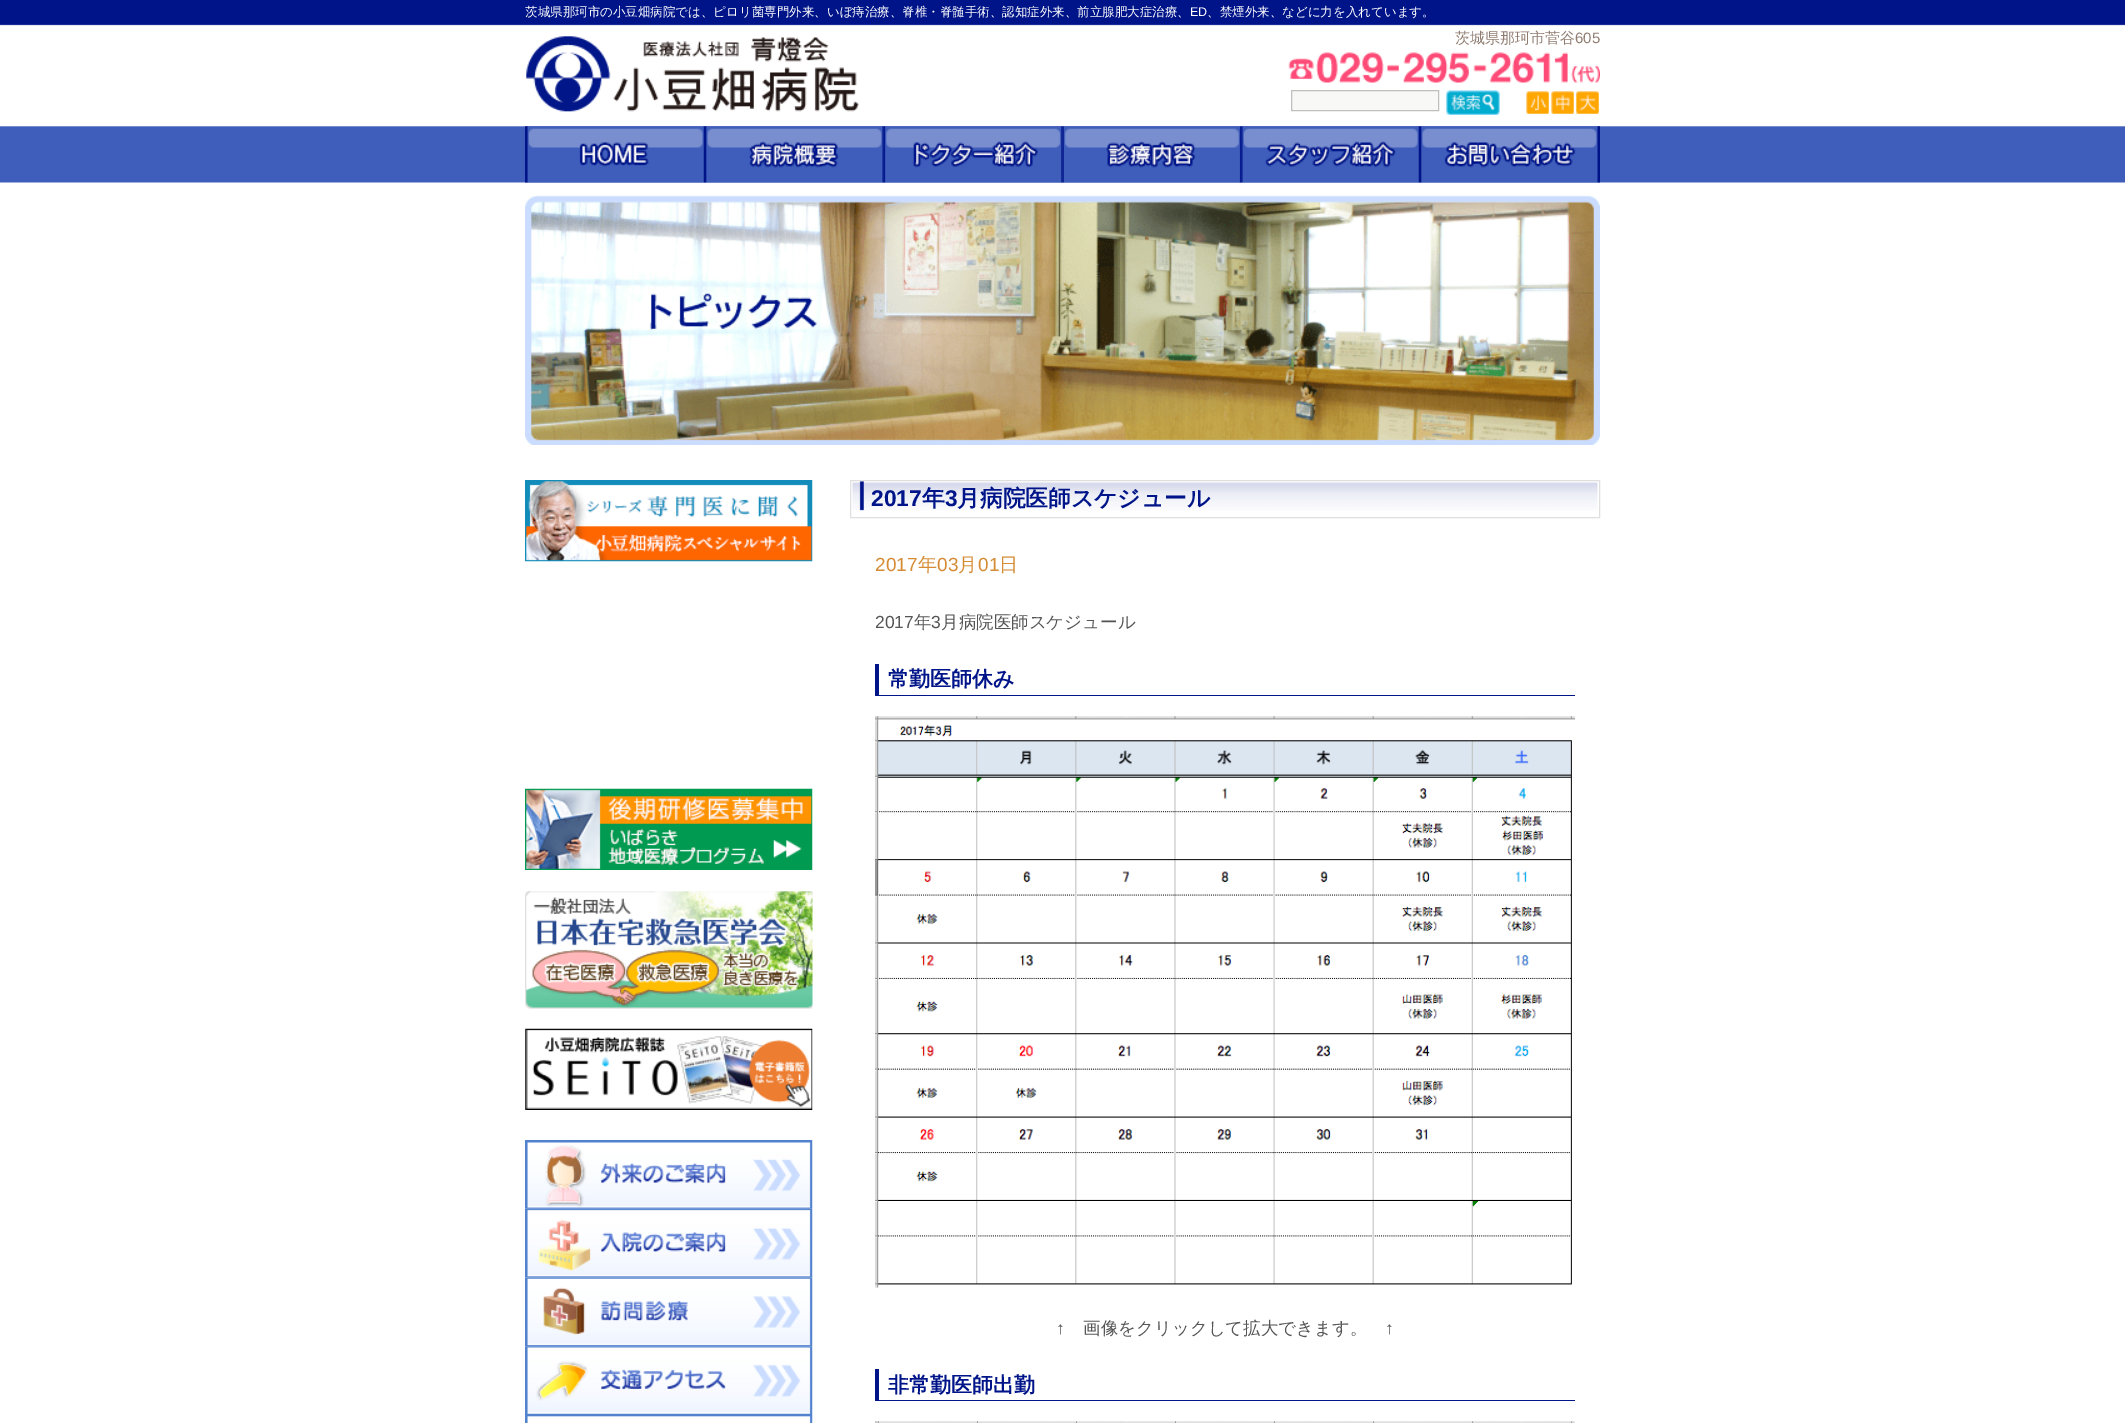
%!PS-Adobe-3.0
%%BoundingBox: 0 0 2125 1423
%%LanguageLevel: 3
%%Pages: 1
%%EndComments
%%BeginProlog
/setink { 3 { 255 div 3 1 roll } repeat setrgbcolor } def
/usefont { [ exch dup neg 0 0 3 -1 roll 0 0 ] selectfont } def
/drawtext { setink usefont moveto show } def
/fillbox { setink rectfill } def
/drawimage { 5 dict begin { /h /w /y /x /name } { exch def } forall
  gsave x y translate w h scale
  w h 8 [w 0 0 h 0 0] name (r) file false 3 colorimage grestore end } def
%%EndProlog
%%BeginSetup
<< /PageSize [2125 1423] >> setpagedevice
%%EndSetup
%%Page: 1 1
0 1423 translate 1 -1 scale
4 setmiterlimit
0 0 2125 1423 255 255 255 fillbox
(assets/img1.rgb) 0 0 2125 183 drawimage
(茨城県那珂市の小豆畑病院では、ピロリ菌専門外来、いぼ痔治療、脊椎・脊髄手術、認知症外来、前立腺肥大症治療、) 525 16 /WenQuanYiZenHei-Medium 12.5 255 255 255 drawtext
(ED) 1190 16 /LiberationSans-Regular 12.5 255 255 255 drawtext
(、禁煙外来、などに力を入れています。) 1207 16 /WenQuanYiZenHei-Medium 12.5 255 255 255 drawtext
(assets/img2.rgb) 526 36 333 76 drawimage
248 248 246 setink
1291.5 90.5 moveto 1438.5 90.5 lineto 1438.5 110.5 lineto 1291.5 110.5 lineto closepath gsave fill grestore
191 191 188 setink
stroke
(assets/img3.rgb) 1446 90 54 25 drawimage
(茨城県那珂市菅谷) 1455 43 /WenQuanYiZenHei-Medium 15 144 124 111 drawtext
(605) 1575 43 /LiberationSans-Regular 15 144 124 111 drawtext
(assets/img4.rgb) 1288 52 312 31 drawimage
(assets/img5.rgb) 1526 91 23 23 drawimage
(assets/img6.rgb) 1551 91 23 23 drawimage
(assets/img7.rgb) 1576 91 23 23 drawimage
(assets/img8.rgb) 525 126 180 57 drawimage
(assets/img9.rgb) 705 126 179 57 drawimage
(assets/img10.rgb) 883 126 180 57 drawimage
(assets/img11.rgb) 1062 126 180 57 drawimage
(assets/img12.rgb) 1241 126 179 57 drawimage
(assets/img13.rgb) 1420 126 180 57 drawimage
(assets/img14.rgb) 525 195 1075 250 drawimage
(assets/img15.rgb) 525 480 288 82 drawimage
(assets/img16.rgb) 525 788 288 82 drawimage
(assets/img17.rgb) 525 891 288 118 drawimage
(assets/img18.rgb) 525 1028 288 82 drawimage
(assets/img19.rgb) 525 1140 288 69 drawimage
(assets/img20.rgb) 525 1208 288 70 drawimage
(assets/img21.rgb) 525 1277 288 70 drawimage
(assets/img22.rgb) 525 1346 288 69 drawimage
(assets/img23.rgb) 525 1415 288 8 drawimage
(assets/img24.rgb) 852 481 746 30 drawimage
222 223 222 setink
850.5 480.5 749 37 rectstroke
(2017) 871 506 /LiberationSans-Bold 22.75 0 20 137 drawtext
(年) 922 506 /WenQuanYiZenHei-Bold 22.75 0 20 137 drawtext
(3) 945 506 /LiberationSans-Bold 22.75 0 20 137 drawtext
(月病院医師スケジュール) 957 506 /WenQuanYiZenHei-Bold 22.75 0 20 137 drawtext
(2017) 875 571 /LiberationSans-Regular 19 213 140 53 drawtext
(年) 918 571 /WenQuanYiZenHei-Medium 19 213 140 53 drawtext
(03) 937 571 /LiberationSans-Regular 19 213 140 53 drawtext
(月) 958 571 /WenQuanYiZenHei-Medium 19 213 140 53 drawtext
(01) 978 571 /LiberationSans-Regular 19 213 140 53 drawtext
(日) 999 571 /WenQuanYiZenHei-Medium 19 213 140 53 drawtext
(2017) 875 628 /LiberationSans-Regular 17.5 85 85 85 drawtext
(年) 914 628 /WenQuanYiZenHei-Medium 17.5 85 85 85 drawtext
(3) 931 628 /LiberationSans-Regular 17.5 85 85 85 drawtext
(月病院医師スケジュール) 941 628 /WenQuanYiZenHei-Medium 17.5 85 85 85 drawtext
875 695 700 1 0 20 137 fillbox
875 664 4 32 0 20 137 fillbox
(常勤医師休み) 888 686 /WenQuanYiZenHei-Bold 21 0 20 137 drawtext
(assets/img25.rgb) 875 716 700 572 drawimage
(↑) 1056 1334 /LiberationSans-Regular 17.5 85 85 85 drawtext
(画像をクリックして拡大できます。) 1083 1334 /WenQuanYiZenHei-Medium 17.5 85 85 85 drawtext
(↑) 1385 1334 /LiberationSans-Regular 17.5 85 85 85 drawtext
875 1400 700 1 0 20 137 fillbox
875 1369 4 32 0 20 137 fillbox
(非常勤医師出勤) 888 1392 /WenQuanYiZenHei-Bold 21 0 20 137 drawtext
(assets/img26.rgb) 875 1421 700 2 drawimage
showpage
%%EOF
